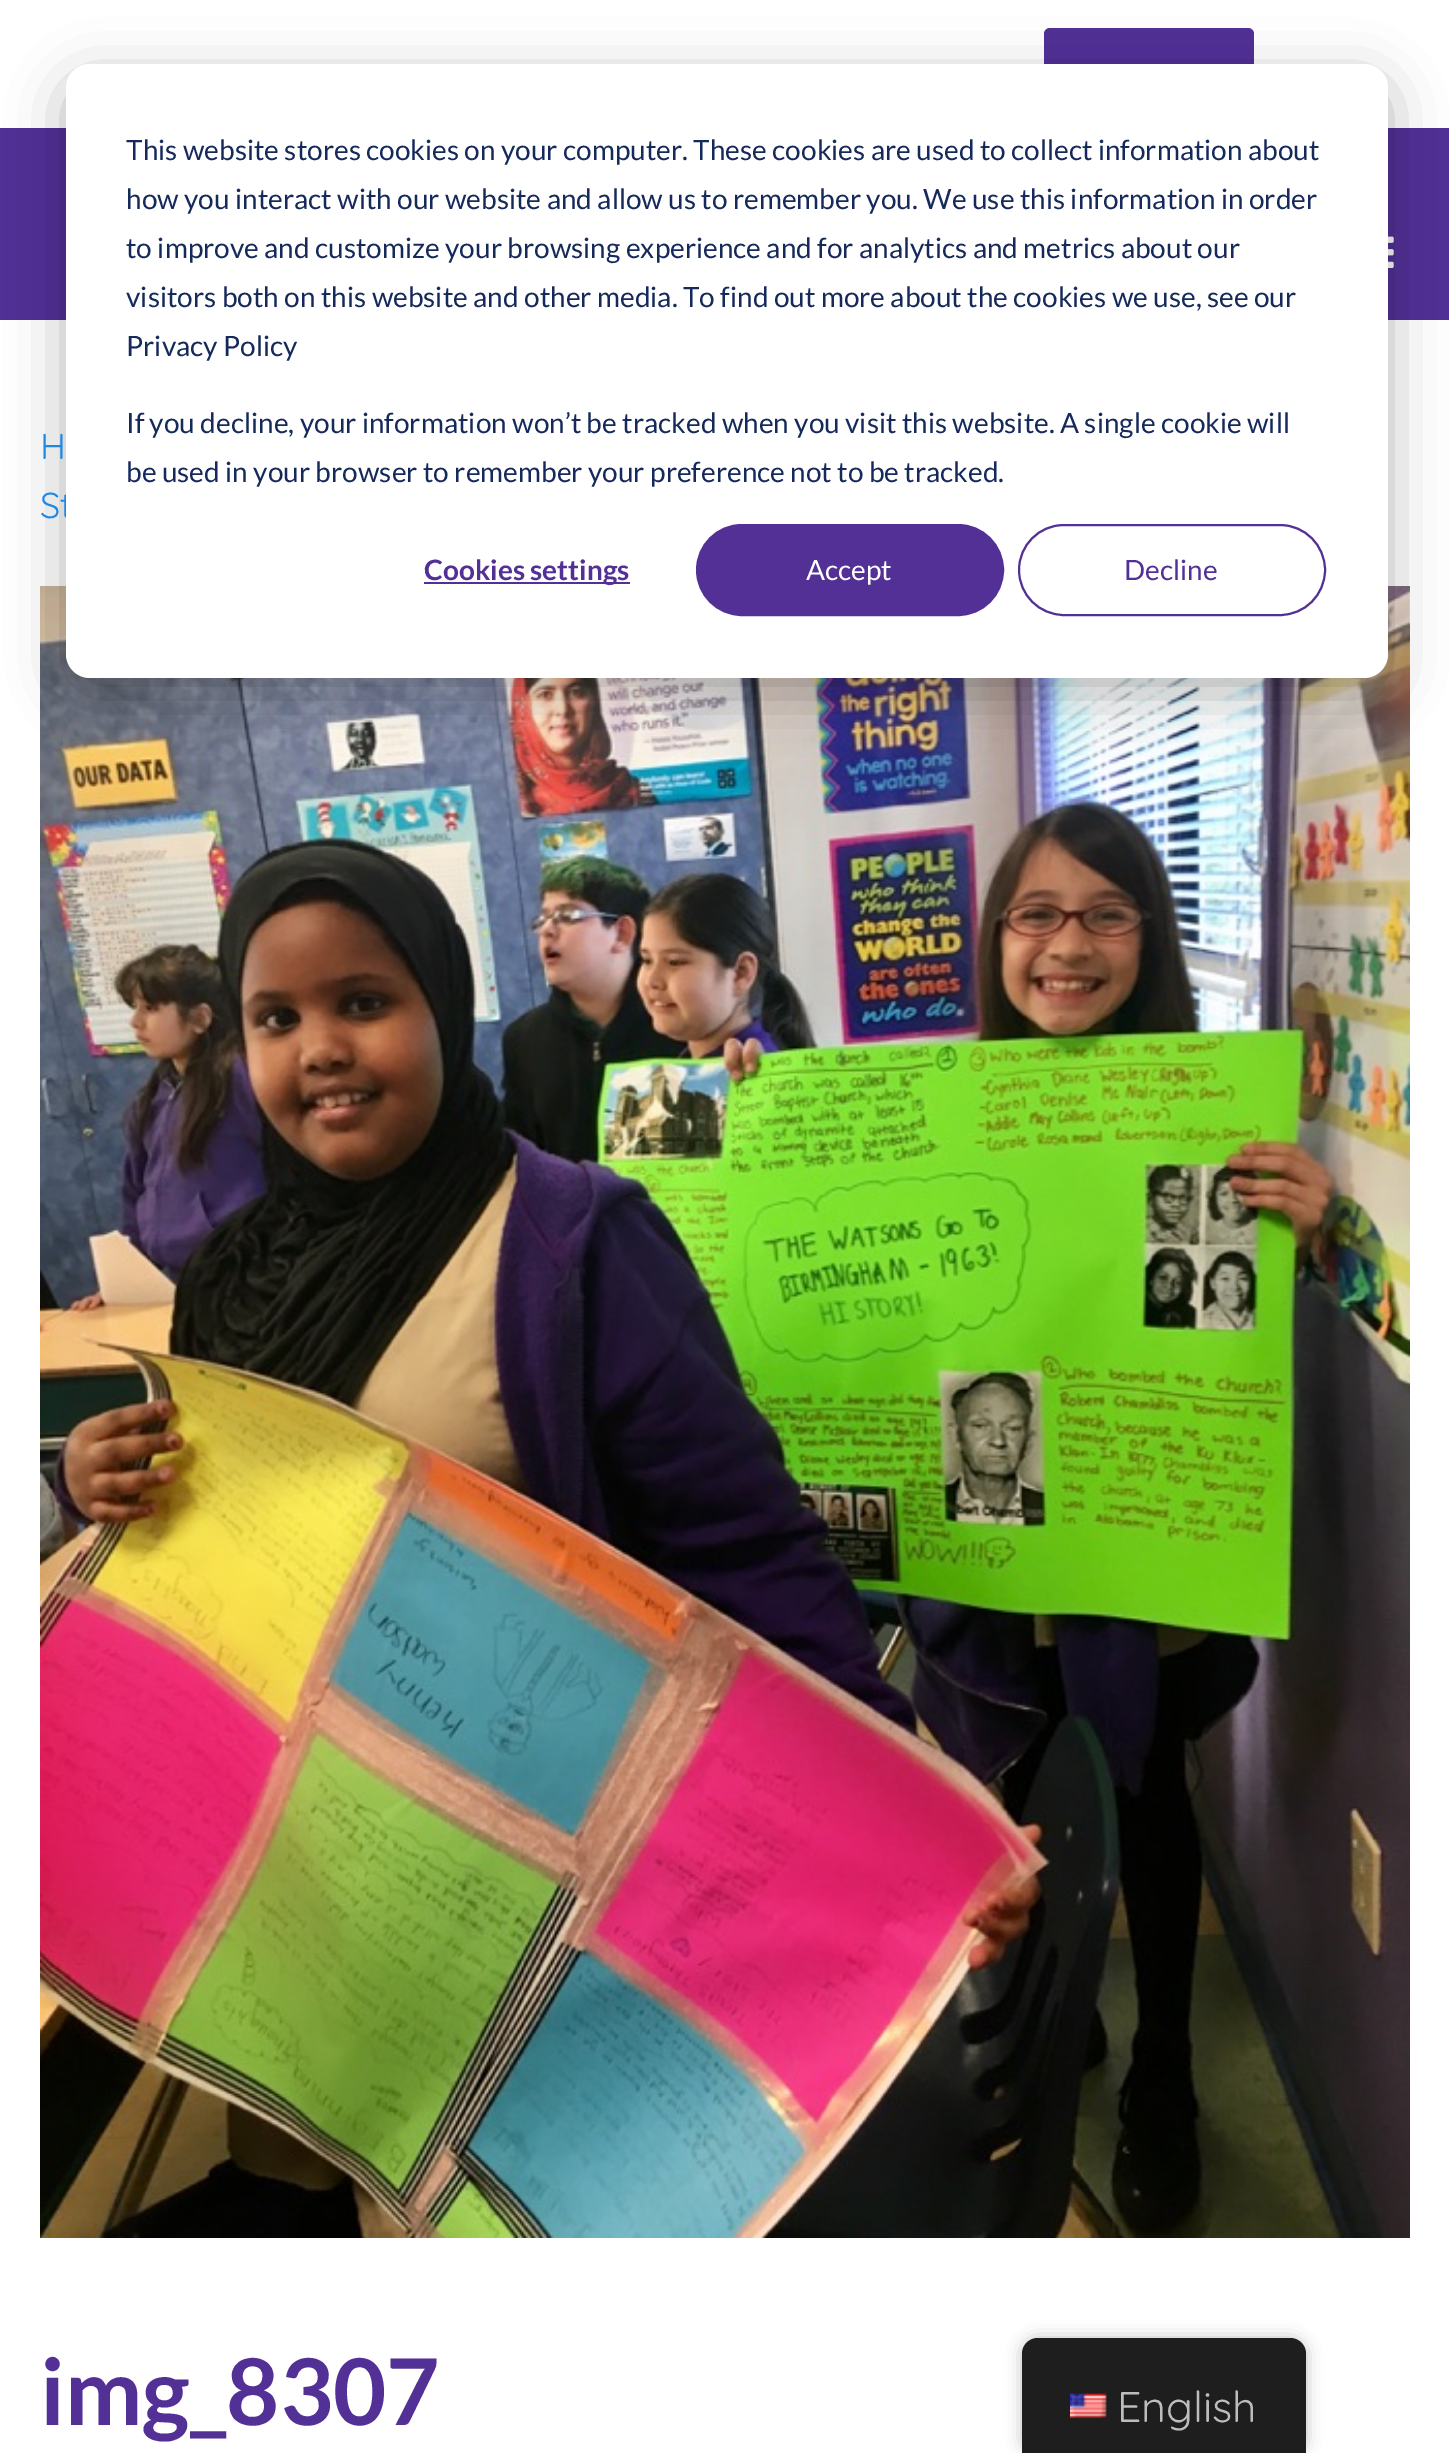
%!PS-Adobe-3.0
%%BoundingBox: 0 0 1449 2453
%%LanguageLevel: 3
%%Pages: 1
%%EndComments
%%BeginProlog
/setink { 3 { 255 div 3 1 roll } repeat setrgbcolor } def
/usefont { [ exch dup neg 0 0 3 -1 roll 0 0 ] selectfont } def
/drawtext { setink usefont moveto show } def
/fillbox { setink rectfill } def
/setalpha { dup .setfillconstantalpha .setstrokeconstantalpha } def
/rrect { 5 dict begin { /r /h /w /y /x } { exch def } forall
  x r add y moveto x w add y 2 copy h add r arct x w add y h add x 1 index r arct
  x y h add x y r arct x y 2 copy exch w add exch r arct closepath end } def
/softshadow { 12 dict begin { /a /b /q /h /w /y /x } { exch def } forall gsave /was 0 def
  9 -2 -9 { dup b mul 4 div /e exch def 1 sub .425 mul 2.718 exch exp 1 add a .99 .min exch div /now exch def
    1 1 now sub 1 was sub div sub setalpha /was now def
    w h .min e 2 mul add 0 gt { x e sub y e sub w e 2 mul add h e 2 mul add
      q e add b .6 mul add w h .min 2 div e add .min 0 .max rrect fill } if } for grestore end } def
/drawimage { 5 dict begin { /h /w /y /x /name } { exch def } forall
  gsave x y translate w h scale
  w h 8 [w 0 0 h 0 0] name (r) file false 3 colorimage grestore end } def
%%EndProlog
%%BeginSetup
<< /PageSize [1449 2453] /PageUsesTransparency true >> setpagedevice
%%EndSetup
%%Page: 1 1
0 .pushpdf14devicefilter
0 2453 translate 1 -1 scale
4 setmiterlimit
0 0 1449 2453 255 255 255 fillbox
82 48 150 setink
1044 28 210 72 6 rrect fill
0 128 1449 192 82 48 150 fillbox
(assets/img1.rgb) 1388 236 6 32 drawimage
(assets/img2.rgb) 40 586 1370 1652 drawimage
0 0 0 setink
66 80 1322 614 24 28 0.28 softshadow
(St) 40 518 /Quicksand-Light 36 30 136 229 drawtext
255 255 255 setink
66 64 1322 614 24 rrect fill
(This website stores cookies on your computer. These cookies are used to collect information about) 126 160 /Lato-Regular 28 21 41 90 drawtext
(how you interact with our website and allow us to remember you. We use this information in order) 126 209 /Lato-Regular 28 21 41 90 drawtext
(to improve and customize your browsing experience and for analytics and metrics about our) 126 258 /Lato-Regular 28 21 41 90 drawtext
(visitors both on this website and other media. To find out more about the cookies we use, see our) 126 307 /Lato-Regular 28 21 41 90 drawtext
(Privacy Policy) 126 356 /Lato-Regular 28 21 41 90 drawtext
(If you decline, your information won’t be tracked when you visit this website. A single cookie will) 126 433 /Lato-Regular 28 21 41 90 drawtext
(be used in your browser to remember your preference not to be tracked.) 126 482 /Lato-Regular 28 21 41 90 drawtext
424 582 206 2 82 48 150 fillbox
(Cookies settings) 424 580 /Lato-Bold 28 82 48 150 drawtext
697 525 306 90 45 rrect gsave fill grestore
2 setlinewidth
stroke
(Accept) 806 580 /Lato-Regular 28 255 255 255 drawtext
82 48 150 setink
1019 525 306 90 45 rrect stroke
(Decline) 1124 580 /Lato-Regular 28 82 48 150 drawtext
(H) 40 459 /Quicksand-Light 36 30 136 229 drawtext
(img_8307) 40 2425 /Lato-Bold 92 82 48 150 drawtext
0 0 0 setink
1022 2338 284 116 16 8 0.25 softshadow
30 30 30 setink
1038 2338 moveto 1290 2338 lineto 1299 2338 1306 2345 1306 2354 curveto 1306 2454 lineto 1022 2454 lineto 1022 2354 lineto 1022 2345 1029 2338 1038 2338 curveto closepath fill
(assets/img3.rgb) 1070 2393 37 25 drawimage
(English) 1117 2422 /Quicksand-Light 43 189 189 189 drawtext
.poppdf14devicefilter showpage
%%EOF
